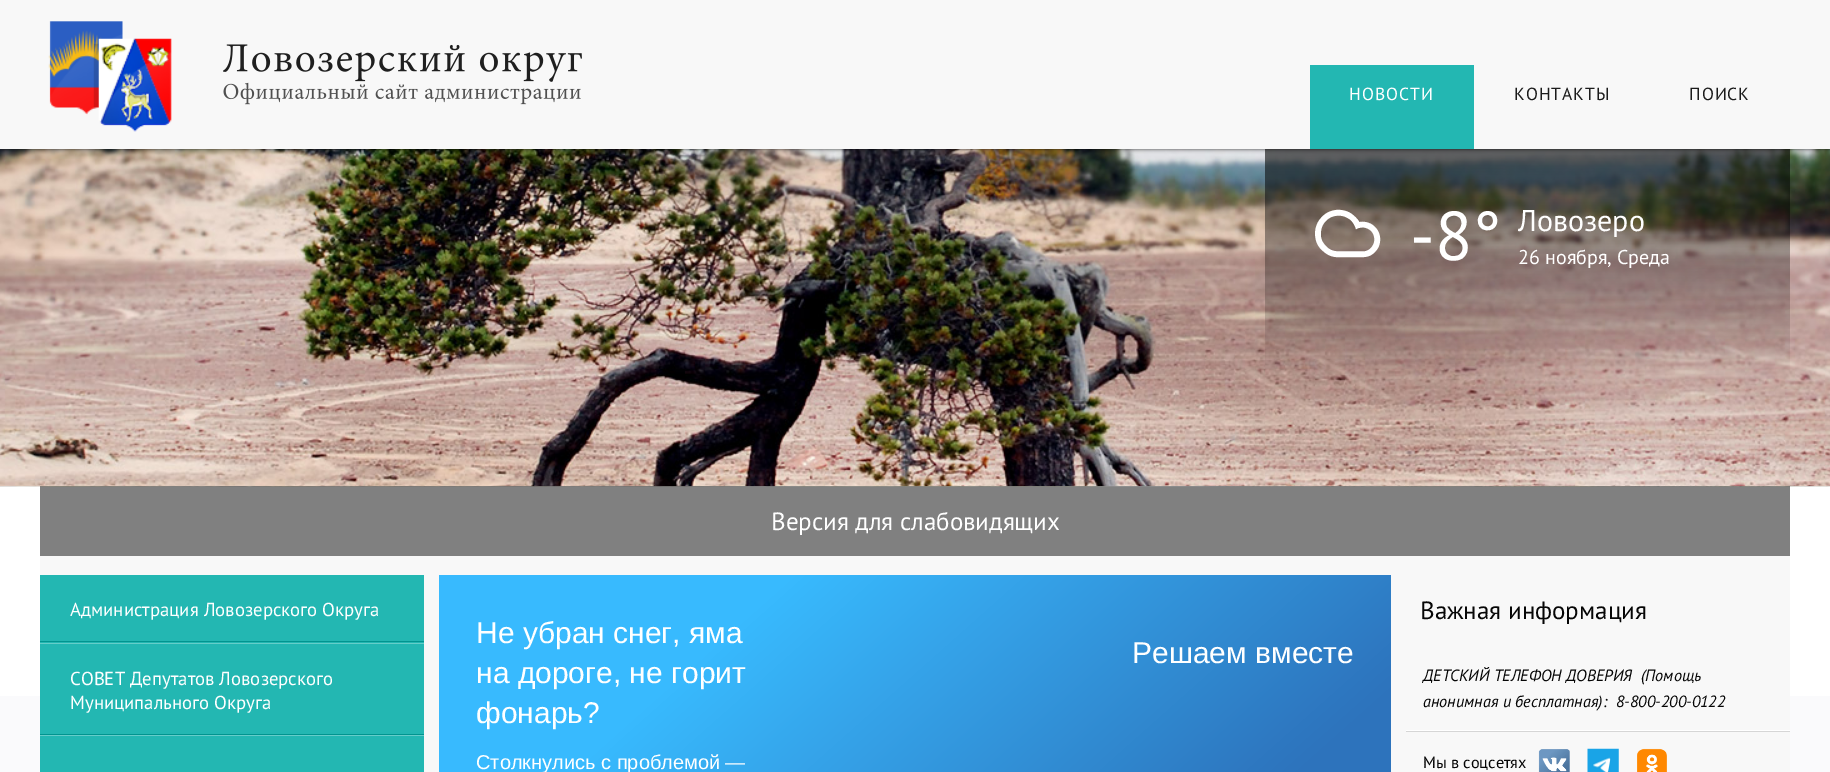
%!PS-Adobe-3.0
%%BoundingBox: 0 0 1830 772
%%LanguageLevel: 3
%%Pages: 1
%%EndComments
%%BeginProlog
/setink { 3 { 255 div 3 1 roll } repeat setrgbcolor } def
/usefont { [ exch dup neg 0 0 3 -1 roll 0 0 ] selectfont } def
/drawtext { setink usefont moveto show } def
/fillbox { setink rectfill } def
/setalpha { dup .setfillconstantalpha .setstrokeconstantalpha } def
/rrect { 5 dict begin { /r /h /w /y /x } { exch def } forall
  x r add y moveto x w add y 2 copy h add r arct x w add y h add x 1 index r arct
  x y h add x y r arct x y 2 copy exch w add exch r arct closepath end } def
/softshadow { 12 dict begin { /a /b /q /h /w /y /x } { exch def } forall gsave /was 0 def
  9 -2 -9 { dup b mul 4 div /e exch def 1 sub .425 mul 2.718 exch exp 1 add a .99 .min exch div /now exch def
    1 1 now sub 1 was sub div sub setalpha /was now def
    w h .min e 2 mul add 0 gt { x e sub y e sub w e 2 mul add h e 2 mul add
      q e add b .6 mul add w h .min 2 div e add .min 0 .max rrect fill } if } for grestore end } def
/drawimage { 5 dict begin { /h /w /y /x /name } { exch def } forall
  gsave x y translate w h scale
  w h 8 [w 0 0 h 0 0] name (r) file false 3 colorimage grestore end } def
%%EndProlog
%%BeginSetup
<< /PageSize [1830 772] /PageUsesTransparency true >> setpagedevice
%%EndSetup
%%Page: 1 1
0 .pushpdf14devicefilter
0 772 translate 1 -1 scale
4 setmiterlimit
0 0 1830 772 255 255 255 fillbox
40 486 1750 70 128 128 128 fillbox
(assets/img5.rgb) 0 486 1830 1 drawimage
(assets/img6.rgb) 0 486 1830 1 drawimage
(assets/img7.rgb) 0 486 1830 1 drawimage
(assets/img4.rgb) 0 149 1830 338 drawimage
0 0 0 setink
3 0 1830 149 0 2 0.75 softshadow
0 0 1830 149 248 248 248 fillbox
(assets/img1.rgb) 48 21 124 111 drawimage
(assets/img2.rgb) 223 44 359 38 drawimage
(assets/img3.rgb) 223 82 358 23 drawimage
1310 65 164 84 35 183 178 fillbox
/PTSans-Regular 17.5 usefont
255 255 255 setink
1349 100 moveto 1 0 (НОВОСТИ) ashow
27 27 27 setink
1514 100 moveto 1 0 (КОНТАКТЫ) ashow
1689 100 moveto 1 0 (ПОИСК) ashow
(!) 1315 275 /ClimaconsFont-Regular 95 255 255 255 drawtext
(-8°) 1410 260 /PTSans-Regular 69 255 255 255 drawtext
(Ловозеро) 1518 231 /PTSans-Regular 30 255 255 255 drawtext
(26 ноября, Среда) 1518 264 /PTSans-Regular 20 255 255 255 drawtext
(Версия для слабовидящих) 771 530 /PTSans-Regular 25 255 255 255 drawtext
0 696 1830 76 250 250 252 fillbox
40 556 1750 216 248 248 248 fillbox
40 575 384 197 35 183 178 fillbox
40 641 384 1 1 148 143 fillbox
(Администрация Ловозерского Округа) 70 616 /PTSans-Regular 18.75 255 255 255 drawtext
40 643 384 1 101 205 201 fillbox
40 734 384 1 1 148 143 fillbox
(СОВЕТ Депутатов Ловозерского) 70 685 /PTSans-Regular 18.75 255 255 255 drawtext
(Муниципального Округа) 70 709 /PTSans-Regular 18.75 255 255 255 drawtext
40 735 384 1 101 205 201 fillbox
gsave 439 575 moveto 1391 575 lineto 1391 772 lineto 439 772 lineto closepath clip newpath
<< /ShadingType 2 /ColorSpace /DeviceRGB /Coords [613 420 1217 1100] /Extend [true true] /Function << /FunctionType 3 /Domain [0 1] /Functions [<< /FunctionType 2 /Domain [0 1] /C0 [0.22 0.729 0.996] /C1 [0.22 0.729 0.996] /N 1 >> << /FunctionType 2 /Domain [0 1] /C0 [0.22 0.729 0.996] /C1 [0.176 0.451 0.737] /N 1 >> << /FunctionType 2 /Domain [0 1] /C0 [0.176 0.451 0.737] /C1 [0.176 0.451 0.737] /N 1 >>] /Bounds [0.26 0.79] /Encode [0 1 0 1 0 1] >> >> shfill grestore
(Не убран снег, яма) 476 643 /LiberationSans-Regular 30 255 255 255 drawtext
(на дороге, не горит) 476 683 /LiberationSans-Regular 30 255 255 255 drawtext
(фонарь?) 476 723 /LiberationSans-Regular 30 255 255 255 drawtext
(Столкнулись с проблемой —) 476 769 /LiberationSans-Regular 20 255 255 255 drawtext
(Решаем вместе) 1132 663 /LiberationSans-Regular 30 255 255 255 drawtext
(Важная информация) 1420 619 /PTSans-Regular 25 6 6 6 drawtext
1406 730 384 1 255 255 255 fillbox
(ДЕТСКИЙ ТЕЛЕФОН ДОВЕРИЯ  \(Помощь) 1423 681 /PTSans-Italic 16.25 6 6 6 drawtext
(анонимная и бесплатная\):  8-800-200-0122) 1423 707 /PTSans-Italic 16.25 6 6 6 drawtext
1406 731 384 1 214 214 214 fillbox
(Мы в соцсетях) 1423 768 /PTSans-Regular 16.25 6 6 6 drawtext
(assets/img8.rgb) 1538 749 32 23 drawimage
(assets/img9.rgb) 1587 748 32 24 drawimage
(assets/img10.rgb) 1637 748 30 24 drawimage
.poppdf14devicefilter showpage
%%EOF
